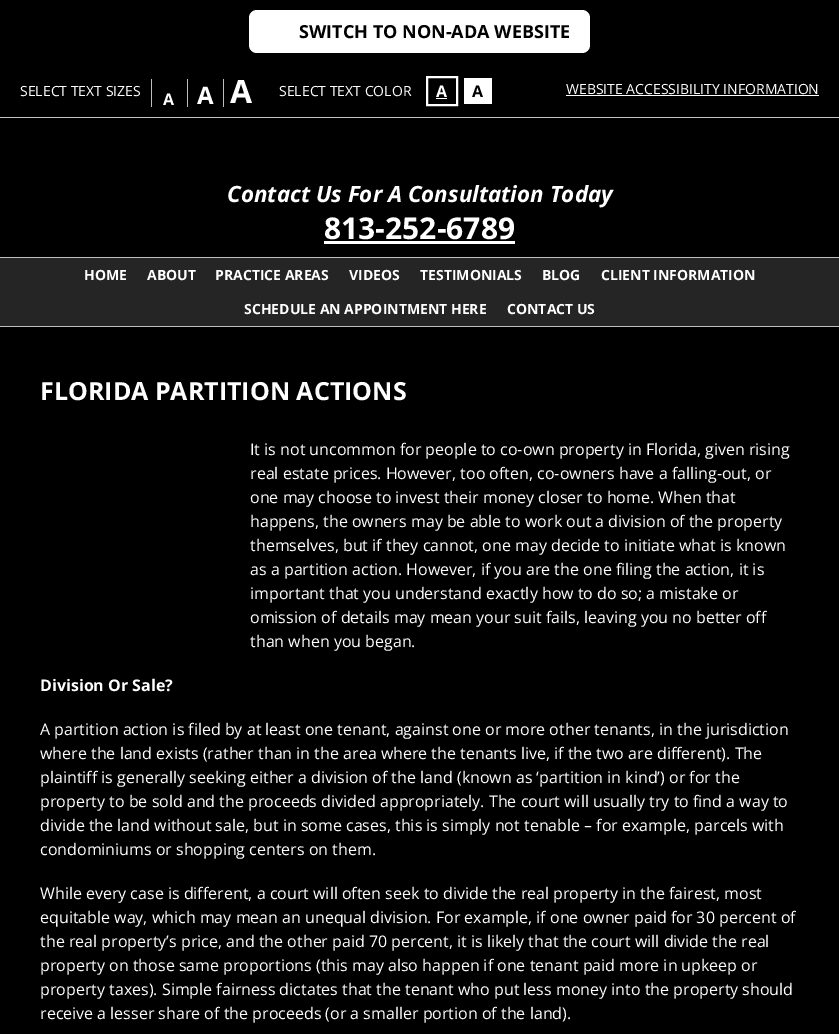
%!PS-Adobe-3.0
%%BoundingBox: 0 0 839 1034
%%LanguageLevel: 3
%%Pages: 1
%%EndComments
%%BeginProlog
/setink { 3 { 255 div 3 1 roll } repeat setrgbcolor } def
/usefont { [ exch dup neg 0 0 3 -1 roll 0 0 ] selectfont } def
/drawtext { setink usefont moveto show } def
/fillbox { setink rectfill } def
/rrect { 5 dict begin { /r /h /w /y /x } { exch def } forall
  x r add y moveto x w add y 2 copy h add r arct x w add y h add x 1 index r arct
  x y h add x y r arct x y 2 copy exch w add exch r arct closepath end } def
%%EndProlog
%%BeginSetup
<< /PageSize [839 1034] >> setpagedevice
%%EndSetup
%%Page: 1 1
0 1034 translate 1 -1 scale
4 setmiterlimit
0 0 839 1034 0 0 0 fillbox
255 255 255 setink
249 10 341 43 8 rrect fill
(SWITCH TO NON-ADA WEBSITE) 299 38 /OpenSans-Bold 18 0 0 0 drawtext
0 117 839 1 196 196 196 fillbox
(SELECT TEXT SIZES) 20 96 /OpenSans-Regular 14 255 255 255 drawtext
151 79 1 28 189 189 189 fillbox
(A) 163 105 /OpenSans-Bold 16 255 255 255 drawtext
187 79 1 28 189 189 189 fillbox
(A) 197 104 /OpenSans-Bold 24 255 255 255 drawtext
223 79 1 28 189 189 189 fillbox
(A) 230 103 /OpenSans-Bold 32 255 255 255 drawtext
(SELECT TEXT COLOR) 279 96 /OpenSans-Regular 14 255 255 255 drawtext
2 setlinewidth
427 77 30 28 rectstroke
(A) 436 97 /OpenSans-Bold 16 255 255 255 drawtext
436 98 11 1 255 255 255 fillbox
464 78 28 26 255 255 255 fillbox
(A) 472 97 /OpenSans-Bold 16 0 0 0 drawtext
(WEBSITE ACCESSIBILITY INFORMATION) 566 94 /OpenSans-Regular 14 255 255 255 drawtext
566 95 253 1 255 255 255 fillbox
(Contact Us For A Consultation Today) 227 202 /OpenSans-BoldItalic 22.4 255 255 255 drawtext
(813-252-6789) 324 239 /OpenSans-Bold 30 255 255 255 drawtext
324 241 191 3 255 255 255 fillbox
0 258 839 68 37 37 37 fillbox
0 257 839 1 193 193 193 fillbox
0 326 839 1 193 193 193 fillbox
(HOME) 84 280 /OpenSans-Bold 14 255 255 255 drawtext
(ABOUT) 147 280 /OpenSans-Bold 14 255 255 255 drawtext
(PRACTICE AREAS) 215 280 /OpenSans-Bold 14 255 255 255 drawtext
(VIDEOS) 349 280 /OpenSans-Bold 14 255 255 255 drawtext
(TESTIMONIALS) 420 280 /OpenSans-Bold 14 255 255 255 drawtext
(BLOG) 542 280 /OpenSans-Bold 14 255 255 255 drawtext
(CLIENT INFORMATION) 601 280 /OpenSans-Bold 14 255 255 255 drawtext
(SCHEDULE AN APPOINTMENT HERE) 244 314 /OpenSans-Bold 14 255 255 255 drawtext
(CONTACT US) 507 314 /OpenSans-Bold 14 255 255 255 drawtext
(FLORIDA PARTITION ACTIONS) 40 400 /OpenSans-Bold 25 255 255 255 drawtext
(It is not uncommon for people to co-own property in Florida, given rising) 250 455 /OpenSans-Regular 16 255 255 255 drawtext
(real estate prices. However, too often, co-owners have a falling-out, or) 250 479 /OpenSans-Regular 16 255 255 255 drawtext
(one may choose to invest their money closer to home. When that) 250 503 /OpenSans-Regular 16 255 255 255 drawtext
(happens, the owners may be able to work out a division of the property) 250 527 /OpenSans-Regular 16 255 255 255 drawtext
(themselves, but if they cannot, one may decide to initiate what is known) 250 551 /OpenSans-Regular 16 255 255 255 drawtext
(as a partition action. However, if you are the one filing the action, it is) 250 575 /OpenSans-Regular 16 255 255 255 drawtext
(important that you understand exactly how to do so; a mistake or) 250 599 /OpenSans-Regular 16 255 255 255 drawtext
(omission of details may mean your suit fails, leaving you no better off) 250 623 /OpenSans-Regular 16 255 255 255 drawtext
(than when you began.) 250 647 /OpenSans-Regular 16 255 255 255 drawtext
(Division Or Sale?) 40 691 /OpenSans-Bold 16 255 255 255 drawtext
(A partition action is filed by at least one tenant, against one or more other tenants, in the jurisdiction) 40 735 /OpenSans-Regular 16 255 255 255 drawtext
(where the land exists \(rather than in the area where the tenants live, if the two are different\). The) 40 759 /OpenSans-Regular 16 255 255 255 drawtext
(plaintiff is generally seeking either a division of the land \(known as ‘partition in kind’\) or for the) 40 783 /OpenSans-Regular 16 255 255 255 drawtext
(property to be sold and the proceeds divided appropriately. The court will usually try to find a way to) 40 807 /OpenSans-Regular 16 255 255 255 drawtext
(divide the land without sale, but in some cases, this is simply not tenable – for example, parcels with) 40 831 /OpenSans-Regular 16 255 255 255 drawtext
(condominiums or shopping centers on them.) 40 855 /OpenSans-Regular 16 255 255 255 drawtext
(While every case is different, a court will often seek to divide the real property in the fairest, most) 40 899 /OpenSans-Regular 16 255 255 255 drawtext
(equitable way, which may mean an unequal division. For example, if one owner paid for 30 percent of) 40 923 /OpenSans-Regular 16 255 255 255 drawtext
(the real property’s price, and the other paid 70 percent, it is likely that the court will divide the real) 40 947 /OpenSans-Regular 16 255 255 255 drawtext
(property on those same proportions \(this may also happen if one tenant paid more in upkeep or) 40 971 /OpenSans-Regular 16 255 255 255 drawtext
(property taxes\). Simple fairness dictates that the tenant who put less money into the property should) 40 995 /OpenSans-Regular 16 255 255 255 drawtext
(receive a lesser share of the proceeds \(or a smaller portion of the land\).) 40 1019 /OpenSans-Regular 16 255 255 255 drawtext
showpage
%%EOF
